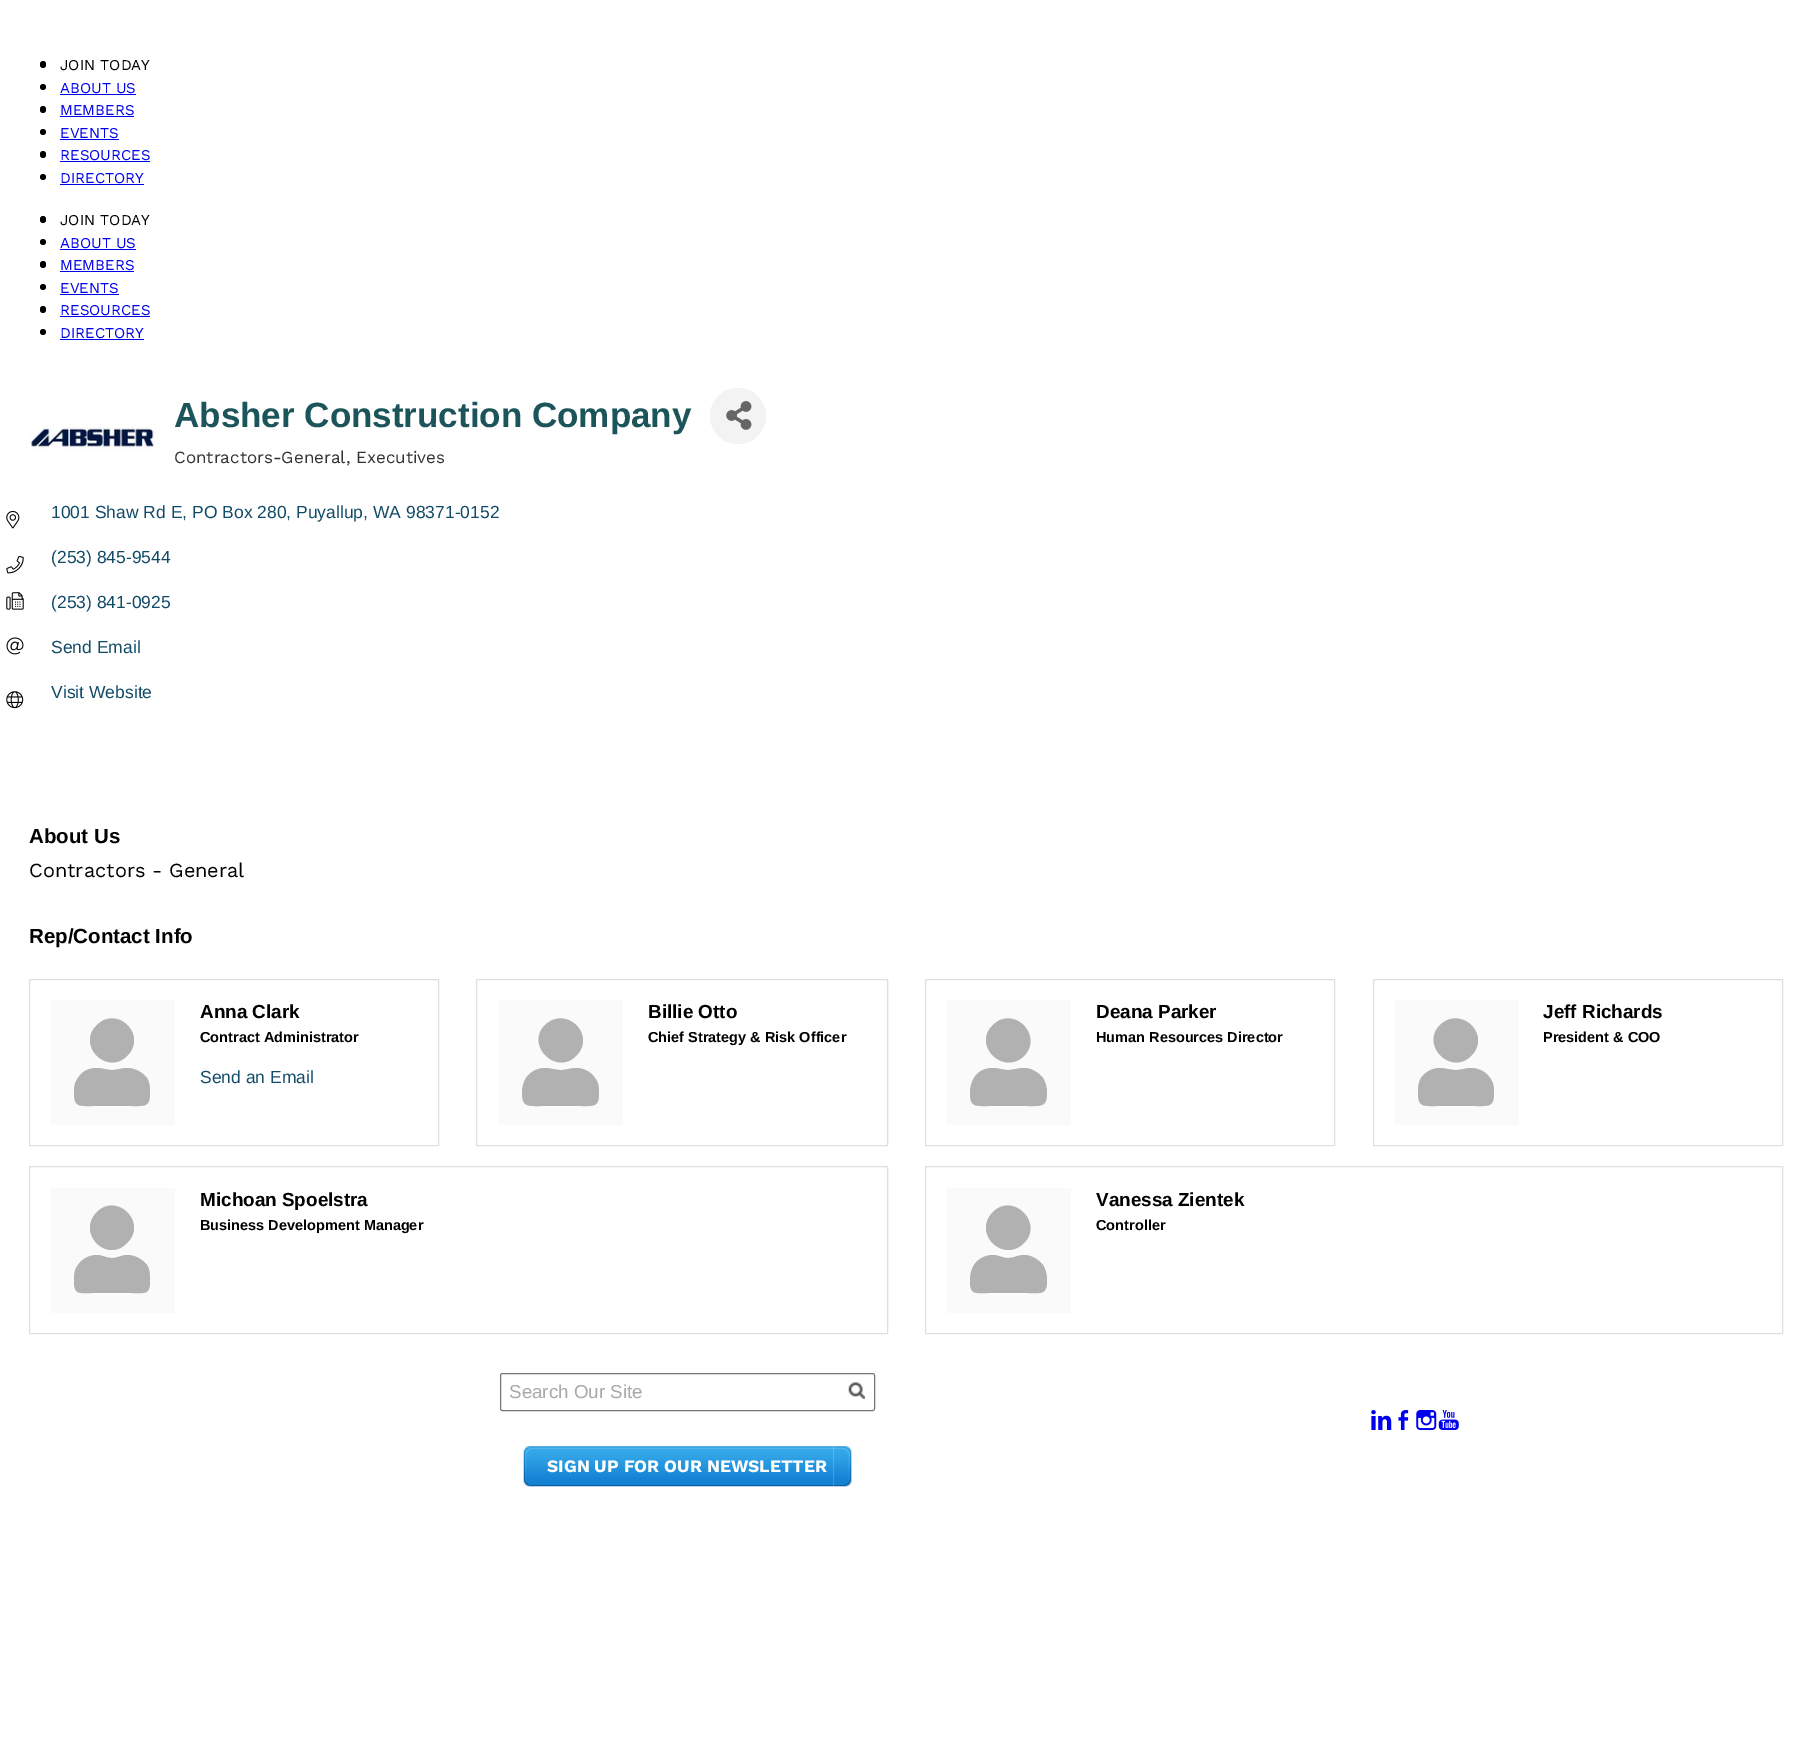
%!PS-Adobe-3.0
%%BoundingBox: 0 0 1811 1762
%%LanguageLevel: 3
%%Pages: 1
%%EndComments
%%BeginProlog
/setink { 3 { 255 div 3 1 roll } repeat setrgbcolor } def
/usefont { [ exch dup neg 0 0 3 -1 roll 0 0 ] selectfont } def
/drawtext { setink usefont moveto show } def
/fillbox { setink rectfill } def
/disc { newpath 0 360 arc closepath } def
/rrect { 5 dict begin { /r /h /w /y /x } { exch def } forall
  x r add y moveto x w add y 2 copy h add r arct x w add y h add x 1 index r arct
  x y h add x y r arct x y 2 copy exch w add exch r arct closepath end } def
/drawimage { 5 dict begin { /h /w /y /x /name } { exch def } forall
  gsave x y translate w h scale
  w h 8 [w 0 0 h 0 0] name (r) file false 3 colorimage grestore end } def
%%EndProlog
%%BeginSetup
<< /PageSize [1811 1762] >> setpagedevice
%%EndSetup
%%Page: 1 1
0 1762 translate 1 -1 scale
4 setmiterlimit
0 0 1811 1762 255 255 255 fillbox
0 0 0 setink
40 61 6 7 3 rrect fill
(JOIN TODAY) 60 70 /WorkSans-Regular 15 0 0 0 drawtext
43 87 3 disc fill
(ABOUT US) 60 93 /WorkSans-Regular 15 0 0 238 drawtext
60 94 76 1 0 0 238 fillbox
0 0 0 setink
40 106 6 7 3 rrect fill
(MEMBERS) 60 115 /WorkSans-Regular 15 0 0 238 drawtext
60 116 74 1 0 0 238 fillbox
0 0 0 setink
43 132 3 disc fill
(EVENTS) 60 138 /WorkSans-Regular 15 0 0 238 drawtext
60 139 59 1 0 0 238 fillbox
0 0 0 setink
40 151 6 7 3 rrect fill
(RESOURCES) 60 160 /WorkSans-Regular 15 0 0 238 drawtext
60 161 90 1 0 0 238 fillbox
0 0 0 setink
43 177 3 disc fill
(DIRECTORY) 60 183 /WorkSans-Regular 15 0 0 238 drawtext
60 184 84 1 0 0 238 fillbox
0 0 0 setink
40 216 6 7 3 rrect fill
(JOIN TODAY) 60 225 /WorkSans-Regular 15 0 0 0 drawtext
43 242 3 disc fill
(ABOUT US) 60 248 /WorkSans-Regular 15 0 0 238 drawtext
60 249 76 1 0 0 238 fillbox
0 0 0 setink
40 261 6 7 3 rrect fill
(MEMBERS) 60 270 /WorkSans-Regular 15 0 0 238 drawtext
60 271 74 1 0 0 238 fillbox
0 0 0 setink
43 287 3 disc fill
(EVENTS) 60 293 /WorkSans-Regular 15 0 0 238 drawtext
60 294 59 1 0 0 238 fillbox
0 0 0 setink
40 306 6 7 3 rrect fill
(RESOURCES) 60 315 /WorkSans-Regular 15 0 0 238 drawtext
60 316 90 1 0 0 238 fillbox
0 0 0 setink
43 332 3 disc fill
(DIRECTORY) 60 338 /WorkSans-Regular 15 0 0 238 drawtext
60 339 84 1 0 0 238 fillbox
(assets/img1.rgb) 29 421 126 30 drawimage
(Absher Construction Company) 174 427 /LiberationSans-Bold 35 27 84 89 drawtext
243 243 243 setink
738 416 28 disc fill
(assets/img2.rgb) 726 401 26 29 drawimage
(Contractors-General, Executives) 174 463 /WorkSans-Regular 17 51 51 51 drawtext
(assets/img3.rgb) 6 510 14 19 drawimage
(1001 Shaw Rd E, PO Box 280, Puyallup, WA 98371-0152) 51 518 /LiberationSans-Regular 17.5 18 75 103 drawtext
(assets/img4.rgb) 6 556 18 18 drawimage
(\(253\) 845-9544) 51 563 /LiberationSans-Regular 17.5 18 75 103 drawtext
(assets/img5.rgb) 6 592 18 18 drawimage
(\(253\) 841-0925) 51 608 /LiberationSans-Regular 17.5 18 75 103 drawtext
(assets/img6.rgb) 6 637 18 18 drawimage
(Send Email) 51 653 /LiberationSans-Regular 17.5 18 75 103 drawtext
(assets/img7.rgb) 6 691 18 18 drawimage
(Visit Website) 51 698 /LiberationSans-Regular 17.5 18 75 103 drawtext
(About Us) 29 843 /LiberationSans-Bold 20.5 0 0 0 drawtext
(Contractors - General) 29 877 /WorkSans-Regular 20 0 0 0 drawtext
(Rep/Contact Info) 29 943 /LiberationSans-Bold 20.5 0 0 0 drawtext
223 223 223 setink
29.5 979.5 409 166 0.5 rrect stroke
50 1000 125 125 250 250 250 fillbox
177 177 177 setink
127 1056 moveto 107 1076 76 1045 97 1025 curveto 117 1005 148 1035 127 1056 curveto closepath 127 1068 moveto 135 1068 142 1072 147 1078 curveto 150 1083 150 1088 150 1093 curveto 150 1107 145 1106 132 1106 curveto 92 1106 lineto 79 1106 74 1107 74 1093 curveto 74 1088 74 1083 78 1078 curveto 82 1071 89 1068 97 1068 curveto 102 1068 106 1070 112 1070 curveto 117 1070 122 1068 127 1068 curveto closepath fill
(Anna Clark) 200 1018 /LiberationSans-Bold 18.9 0 0 0 drawtext
(Contract Administrator) 200 1042 /LiberationSans-Bold 14.5 0 0 0 drawtext
(Send an Email) 200 1083 /LiberationSans-Regular 17.5 18 75 103 drawtext
223 223 223 setink
476.5 979.5 411 166 0.5 rrect stroke
498 1000 125 125 250 250 250 fillbox
177 177 177 setink
576 1056 moveto 556 1076 525 1045 545 1025 curveto 566 1005 597 1035 576 1056 curveto closepath 576 1068 moveto 584 1068 591 1072 595 1078 curveto 599 1083 599 1088 599 1093 curveto 599 1107 594 1106 581 1106 curveto 541 1106 lineto 528 1106 522 1107 522 1093 curveto 522 1088 523 1083 526 1078 curveto 531 1071 538 1068 545 1068 curveto 550 1068 555 1070 561 1070 curveto 566 1070 571 1068 576 1068 curveto closepath fill
(Billie Otto) 648 1018 /LiberationSans-Bold 18.9 0 0 0 drawtext
(Chief Strategy & Risk Officer) 648 1042 /LiberationSans-Bold 14.5 0 0 0 drawtext
223 223 223 setink
925.5 979.5 409 166 0.5 rrect stroke
946 1000 125 125 250 250 250 fillbox
177 177 177 setink
1024 1056 moveto 1003 1076 972 1045 993 1025 curveto 1013 1005 1044 1035 1024 1056 curveto closepath 1024 1068 moveto 1031 1068 1038 1072 1043 1078 curveto 1046 1083 1047 1088 1047 1093 curveto 1047 1107 1041 1106 1028 1106 curveto 988 1106 lineto 975 1106 970 1107 970 1093 curveto 970 1088 971 1083 974 1078 curveto 978 1071 985 1068 993 1068 curveto 998 1068 1003 1070 1008 1070 curveto 1014 1070 1018 1068 1024 1068 curveto closepath fill
(Deana Parker) 1096 1018 /LiberationSans-Bold 18.9 0 0 0 drawtext
(Human Resources Director) 1096 1042 /LiberationSans-Bold 14.5 0 0 0 drawtext
223 223 223 setink
1373.5 979.5 409 166 0.5 rrect stroke
1394 1000 125 125 250 250 250 fillbox
177 177 177 setink
1471 1056 moveto 1451 1076 1420 1045 1440 1025 curveto 1461 1005 1492 1035 1471 1056 curveto closepath 1471 1068 moveto 1479 1068 1486 1072 1490 1078 curveto 1494 1083 1494 1088 1494 1093 curveto 1494 1107 1489 1106 1476 1106 curveto 1436 1106 lineto 1423 1106 1418 1107 1418 1093 curveto 1418 1088 1418 1083 1421 1078 curveto 1426 1071 1433 1068 1440 1068 curveto 1445 1068 1450 1070 1456 1070 curveto 1461 1070 1466 1068 1471 1068 curveto closepath fill
(Jeff Richards) 1543 1018 /LiberationSans-Bold 18.9 0 0 0 drawtext
(President & COO) 1543 1042 /LiberationSans-Bold 14.5 0 0 0 drawtext
223 223 223 setink
29.5 1166.5 858 167 0.5 rrect stroke
50 1188 125 125 250 250 250 fillbox
177 177 177 setink
127 1243 moveto 107 1264 76 1233 97 1212 curveto 117 1192 148 1223 127 1243 curveto closepath 127 1255 moveto 135 1255 142 1259 147 1265 curveto 150 1270 150 1275 150 1281 curveto 150 1295 145 1293 132 1293 curveto 92 1293 lineto 79 1293 74 1295 74 1281 curveto 74 1275 74 1270 78 1265 curveto 82 1259 89 1255 97 1255 curveto 102 1255 106 1258 112 1258 curveto 117 1258 122 1255 127 1255 curveto closepath fill
(Michoan Spoelstra) 200 1206 /LiberationSans-Bold 18.9 0 0 0 drawtext
(Business Development Manager) 200 1230 /LiberationSans-Bold 14.5 0 0 0 drawtext
223 223 223 setink
925.5 1166.5 857 167 0.5 rrect stroke
946 1188 125 125 250 250 250 fillbox
177 177 177 setink
1024 1243 moveto 1003 1264 972 1233 993 1212 curveto 1013 1192 1044 1223 1024 1243 curveto closepath 1024 1255 moveto 1031 1255 1038 1259 1043 1265 curveto 1046 1270 1047 1275 1047 1281 curveto 1047 1295 1041 1293 1028 1293 curveto 988 1293 lineto 975 1293 970 1295 970 1281 curveto 970 1275 971 1270 974 1265 curveto 978 1259 985 1255 993 1255 curveto 998 1255 1003 1258 1008 1258 curveto 1014 1258 1018 1255 1024 1255 curveto closepath fill
(Vanessa Zientek) 1096 1206 /LiberationSans-Bold 18.9 0 0 0 drawtext
(Controller) 1096 1230 /LiberationSans-Bold 14.5 0 0 0 drawtext
118 118 118 setink
500.5 1373.5 374 37 2 rrect stroke
(Search Our Site) 509 1398 /LiberationSans-Regular 18.75 169 169 169 drawtext
(assets/img8.rgb) 848 1382 17 17 drawimage
(assets/img9.rgb) 833 1446 19 41 drawimage
(assets/img10.rgb) 523 1446 311 41 drawimage
(SIGN UP FOR OUR NEWSLETTER) 547 1472 /WorkSans-Bold 17.5 255 255 255 drawtext
(assets/img11.rgb) 1371 1410 21 20 drawimage
(assets/img12.rgb) 1398 1410 11 20 drawimage
(assets/img13.rgb) 1416 1410 21 20 drawimage
(assets/img14.rgb) 1438 1410 21 20 drawimage
showpage
%%EOF
